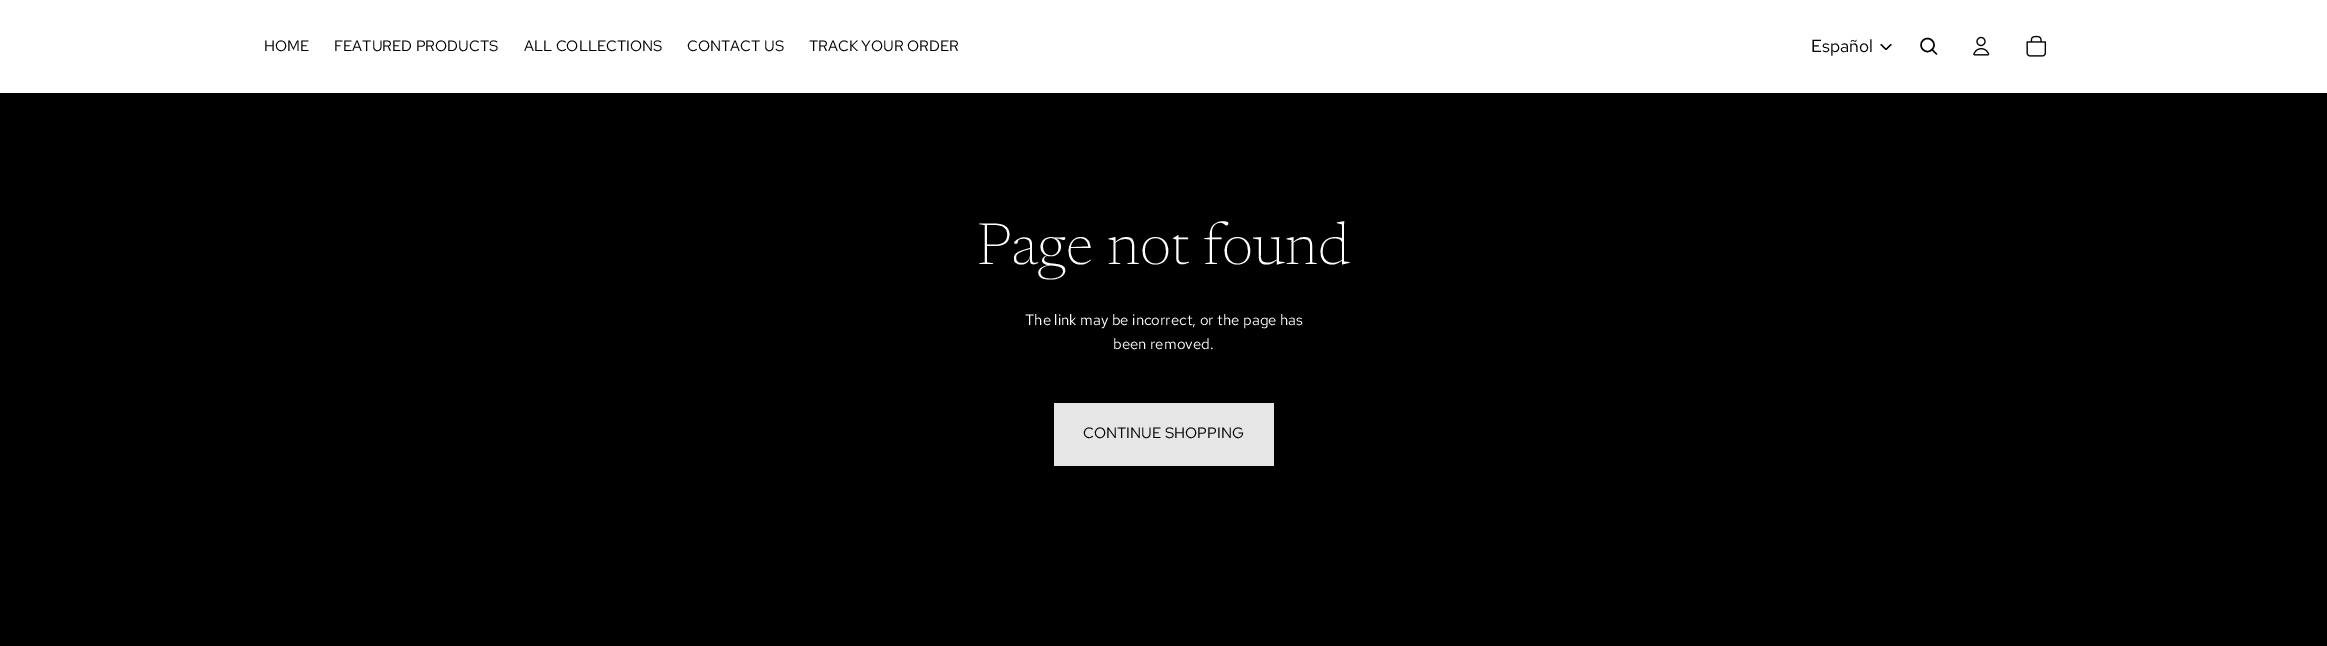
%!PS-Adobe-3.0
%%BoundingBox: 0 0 2327 646
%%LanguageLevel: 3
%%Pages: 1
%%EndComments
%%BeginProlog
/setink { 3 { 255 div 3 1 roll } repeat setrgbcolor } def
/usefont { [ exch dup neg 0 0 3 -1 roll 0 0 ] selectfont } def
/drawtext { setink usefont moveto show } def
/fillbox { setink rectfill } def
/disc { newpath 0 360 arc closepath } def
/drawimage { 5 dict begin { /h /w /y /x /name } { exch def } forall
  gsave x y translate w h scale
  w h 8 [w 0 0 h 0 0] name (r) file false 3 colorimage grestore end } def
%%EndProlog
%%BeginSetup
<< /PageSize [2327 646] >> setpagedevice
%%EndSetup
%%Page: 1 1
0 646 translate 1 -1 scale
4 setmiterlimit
0 0 2327 646 0 0 0 fillbox
0 0 2327 93 255 255 255 fillbox
(HOME) 264 51 /RedHatText-Regular 15 0 0 0 drawtext
(FEATURED PRODUCTS) 334 51 /RedHatText-Regular 15 0 0 0 drawtext
(ALL COLLECTIONS) 524 51 /RedHatText-Regular 15 0 0 0 drawtext
(CONTACT US) 687 51 /RedHatText-Regular 15 0 0 0 drawtext
(TRACK YOUR ORDER) 809 51 /RedHatText-Regular 15 0 0 0 drawtext
(Español) 1811 52 /RedHatText-Regular 17.5 0 0 0 drawtext
1.2 setlinewidth
1 setlinecap
1 setlinejoin
1891 44.5 moveto 1886 49.5 lineto 1881 44.5 lineto stroke
1.4 setlinewidth
0 setlinecap
0 setlinejoin
1927.5 45 6.5 disc stroke
1 setlinecap
1 setlinejoin
1932 49.5 moveto 1936.5 54 lineto stroke
(assets/img1.rgb) 1973 36 17 20 drawimage
(assets/img2.rgb) 2026 35 21 22 drawimage
(Page not found) 977 264 /Newsreader-ExtraLight 60 255 255 255 drawtext
(The link may be incorrect, or the page has) 1025 325 /RedHatText-Regular 15 255 255 255 drawtext
(been removed.) 1113 349 /RedHatText-Regular 15 255 255 255 drawtext
1054 403 220 63 230 230 230 fillbox
(CONTINUE SHOPPING) 1083 438 /RedHatText-Regular 15 0 0 0 drawtext
showpage
%%EOF
